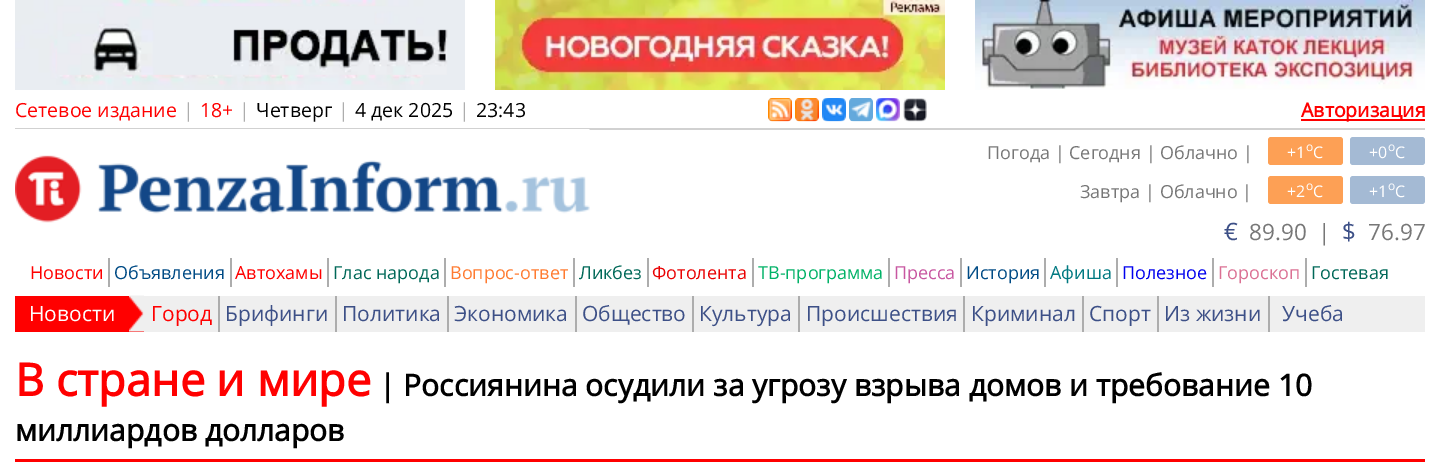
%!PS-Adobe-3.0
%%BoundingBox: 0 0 1440 462
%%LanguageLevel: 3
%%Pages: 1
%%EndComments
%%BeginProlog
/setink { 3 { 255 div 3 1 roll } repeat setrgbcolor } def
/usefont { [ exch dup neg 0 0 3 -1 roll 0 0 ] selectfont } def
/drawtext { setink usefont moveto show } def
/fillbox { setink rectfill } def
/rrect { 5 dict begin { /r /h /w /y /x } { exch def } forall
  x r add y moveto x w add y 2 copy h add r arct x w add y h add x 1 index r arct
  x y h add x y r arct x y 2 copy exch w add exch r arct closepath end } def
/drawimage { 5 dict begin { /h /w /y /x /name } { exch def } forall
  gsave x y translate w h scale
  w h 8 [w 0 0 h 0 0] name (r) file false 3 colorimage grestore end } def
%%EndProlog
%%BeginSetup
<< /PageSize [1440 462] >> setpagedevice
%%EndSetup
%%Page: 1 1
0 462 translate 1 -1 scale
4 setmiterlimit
0 0 1440 462 255 255 255 fillbox
(assets/img1.rgb) 15 0 450 90 drawimage
(assets/img2.rgb) 495 0 450 90 drawimage
(assets/img3.rgb) 975 0 450 90 drawimage
15 128 1410 2 209 209 209 fillbox
(Сетевое издание) 15 117 /OpenSans-Regular 19.5 255 0 0 drawtext
(|) 183 117 /OpenSans-Regular 19.5 173 173 173 drawtext
(18+) 200 117 /OpenSans-Regular 19.5 255 0 0 drawtext
(|) 239 117 /OpenSans-Regular 19.5 173 173 173 drawtext
(Четверг) 256 117 /OpenSans-Regular 19.5 0 0 0 drawtext
(|) 338 117 /OpenSans-Regular 19.5 173 173 173 drawtext
(4 дек 2025) 355 117 /OpenSans-Regular 19.5 0 0 0 drawtext
(|) 459 117 /OpenSans-Regular 19.5 173 173 173 drawtext
(23:43) 476 117 /OpenSans-Regular 19.5 0 0 0 drawtext
(assets/img4.rgb) 768 98 24 24 drawimage
(assets/img5.rgb) 795 98 24 24 drawimage
(assets/img6.rgb) 822 98 24 24 drawimage
(assets/img7.rgb) 849 98 24 24 drawimage
(assets/img8.rgb) 876 98 24 24 drawimage
(assets/img9.rgb) 903 98 24 24 drawimage
1301 119 124 2 255 0 0 fillbox
(Авторизация) 1301 117 /OpenSans-Bold 19.5 255 0 0 drawtext
(assets/img10.rgb) 15 129 575 94 drawimage
(Погода | Сегодня | Облачно |) 987 159 /OpenSans-Regular 18 119 119 119 drawtext
253 160 85 setink
1268 137 75 28 3 rrect fill
(+1) 1287 158 /OpenSans-Regular 16 255 255 255 drawtext
(o) 1306 151 /OpenSans-Regular 12 255 255 255 drawtext
(C) 1313 158 /OpenSans-Regular 16 255 255 255 drawtext
164 186 212 setink
1350 137 75 28 3 rrect fill
(+0) 1369 158 /OpenSans-Regular 16 255 255 255 drawtext
(o) 1388 151 /OpenSans-Regular 12 255 255 255 drawtext
(C) 1395 158 /OpenSans-Regular 16 255 255 255 drawtext
(Завтра | Облачно |) 1080 198 /OpenSans-Regular 18 119 119 119 drawtext
253 160 85 setink
1268 176 75 28 3 rrect fill
(+2) 1287 197 /OpenSans-Regular 16 255 255 255 drawtext
(o) 1306 190 /OpenSans-Regular 12 255 255 255 drawtext
(C) 1313 197 /OpenSans-Regular 16 255 255 255 drawtext
164 186 212 setink
1350 176 75 28 3 rrect fill
(+1) 1369 197 /OpenSans-Regular 16 255 255 255 drawtext
(o) 1388 190 /OpenSans-Regular 12 255 255 255 drawtext
(C) 1395 197 /OpenSans-Regular 16 255 255 255 drawtext
(€) 1224 240 /OpenSans-Regular 24 61 80 135 drawtext
(89.90) 1249 240 /OpenSans-Regular 22.5 119 119 119 drawtext
(|) 1318 240 /OpenSans-Regular 22.5 119 119 119 drawtext
($) 1342 240 /OpenSans-Regular 24 61 80 135 drawtext
(76.97) 1368 240 /OpenSans-Regular 22.5 119 119 119 drawtext
(Новости) 30 279 /OpenSans-Regular 18 255 0 0 drawtext
108 258 2 29 173 173 173 fillbox
(Объявления) 114 279 /OpenSans-Regular 18 0 75 133 drawtext
230 258 2 29 173 173 173 fillbox
(Автохамы) 235 279 /OpenSans-Regular 18 255 0 0 drawtext
327 258 2 29 173 173 173 fillbox
(Глас народа) 333 279 /OpenSans-Regular 18 0 104 88 drawtext
444 258 2 29 173 173 173 fillbox
(Вопрос-ответ) 450 279 /OpenSans-Regular 18 255 123 49 drawtext
573 258 2 29 173 173 173 fillbox
(Ликбез) 579 279 /OpenSans-Regular 18 0 104 88 drawtext
647 258 2 29 173 173 173 fillbox
(Фотолента) 652 279 /OpenSans-Regular 18 233 1 2 drawtext
752 258 2 29 173 173 173 fillbox
(ТВ-программа) 758 279 /OpenSans-Regular 18 1 178 103 drawtext
888 258 2 29 173 173 173 fillbox
(Пресса) 894 279 /OpenSans-Regular 18 200 87 161 drawtext
960 258 2 29 173 173 173 fillbox
(История) 966 279 /OpenSans-Regular 18 0 75 133 drawtext
1044 258 2 29 173 173 173 fillbox
(Афиша) 1050 279 /OpenSans-Regular 18 0 121 129 drawtext
1116 258 2 29 173 173 173 fillbox
(Полезное) 1122 279 /OpenSans-Regular 18 0 0 238 drawtext
1212 258 2 29 173 173 173 fillbox
(Гороскоп) 1218 279 /OpenSans-Regular 18 219 112 147 drawtext
1305 258 2 29 173 173 173 fillbox
(Гостевая) 1311 279 /OpenSans-Regular 18 0 104 88 drawtext
144 296 1281 36 239 239 239 fillbox
15 296 129 36 255 0 0 fillbox
(assets/img11.rgb) 129 295 15 37 drawimage
(Новости) 29 321 /OpenSans-Regular 21 255 255 255 drawtext
(Город) 151 321 /OpenSans-Regular 21 255 0 0 drawtext
218 296 2 36 173 173 173 fillbox
(Брифинги) 225 321 /OpenSans-Regular 21 61 80 135 drawtext
335 296 2 36 173 173 173 fillbox
(Политика) 342 321 /OpenSans-Regular 21 61 80 135 drawtext
447 296 2 36 173 173 173 fillbox
(Экономика) 454 321 /OpenSans-Regular 21 61 80 135 drawtext
575 296 2 36 173 173 173 fillbox
(Общество) 582 321 /OpenSans-Regular 21 61 80 135 drawtext
692 296 2 36 173 173 173 fillbox
(Культура) 699 321 /OpenSans-Regular 21 61 80 135 drawtext
798 296 2 36 173 173 173 fillbox
(Происшествия) 806 321 /OpenSans-Regular 21 61 80 135 drawtext
963 296 2 36 173 173 173 fillbox
(Криминал) 971 321 /OpenSans-Regular 21 61 80 135 drawtext
1082 296 2 36 173 173 173 fillbox
(Спорт) 1089 321 /OpenSans-Regular 21 61 80 135 drawtext
1157 296 2 36 173 173 173 fillbox
(Из жизни) 1164 321 /OpenSans-Regular 21 61 80 135 drawtext
1268 296 2 36 173 173 173 fillbox
(Учеба) 1282 321 /OpenSans-Regular 21 61 80 135 drawtext
15 459 1410 3 255 0 0 fillbox
(В стране и мире) 15 396 /OpenSans-Bold 45 255 0 0 drawtext
(| Россиянина осудили за угрозу взрыва домов и требование 10) 379 396 /OpenSans-Bold 30 0 0 0 drawtext
(миллиардов долларов) 15 441 /OpenSans-Bold 30 0 0 0 drawtext
showpage
%%EOF
